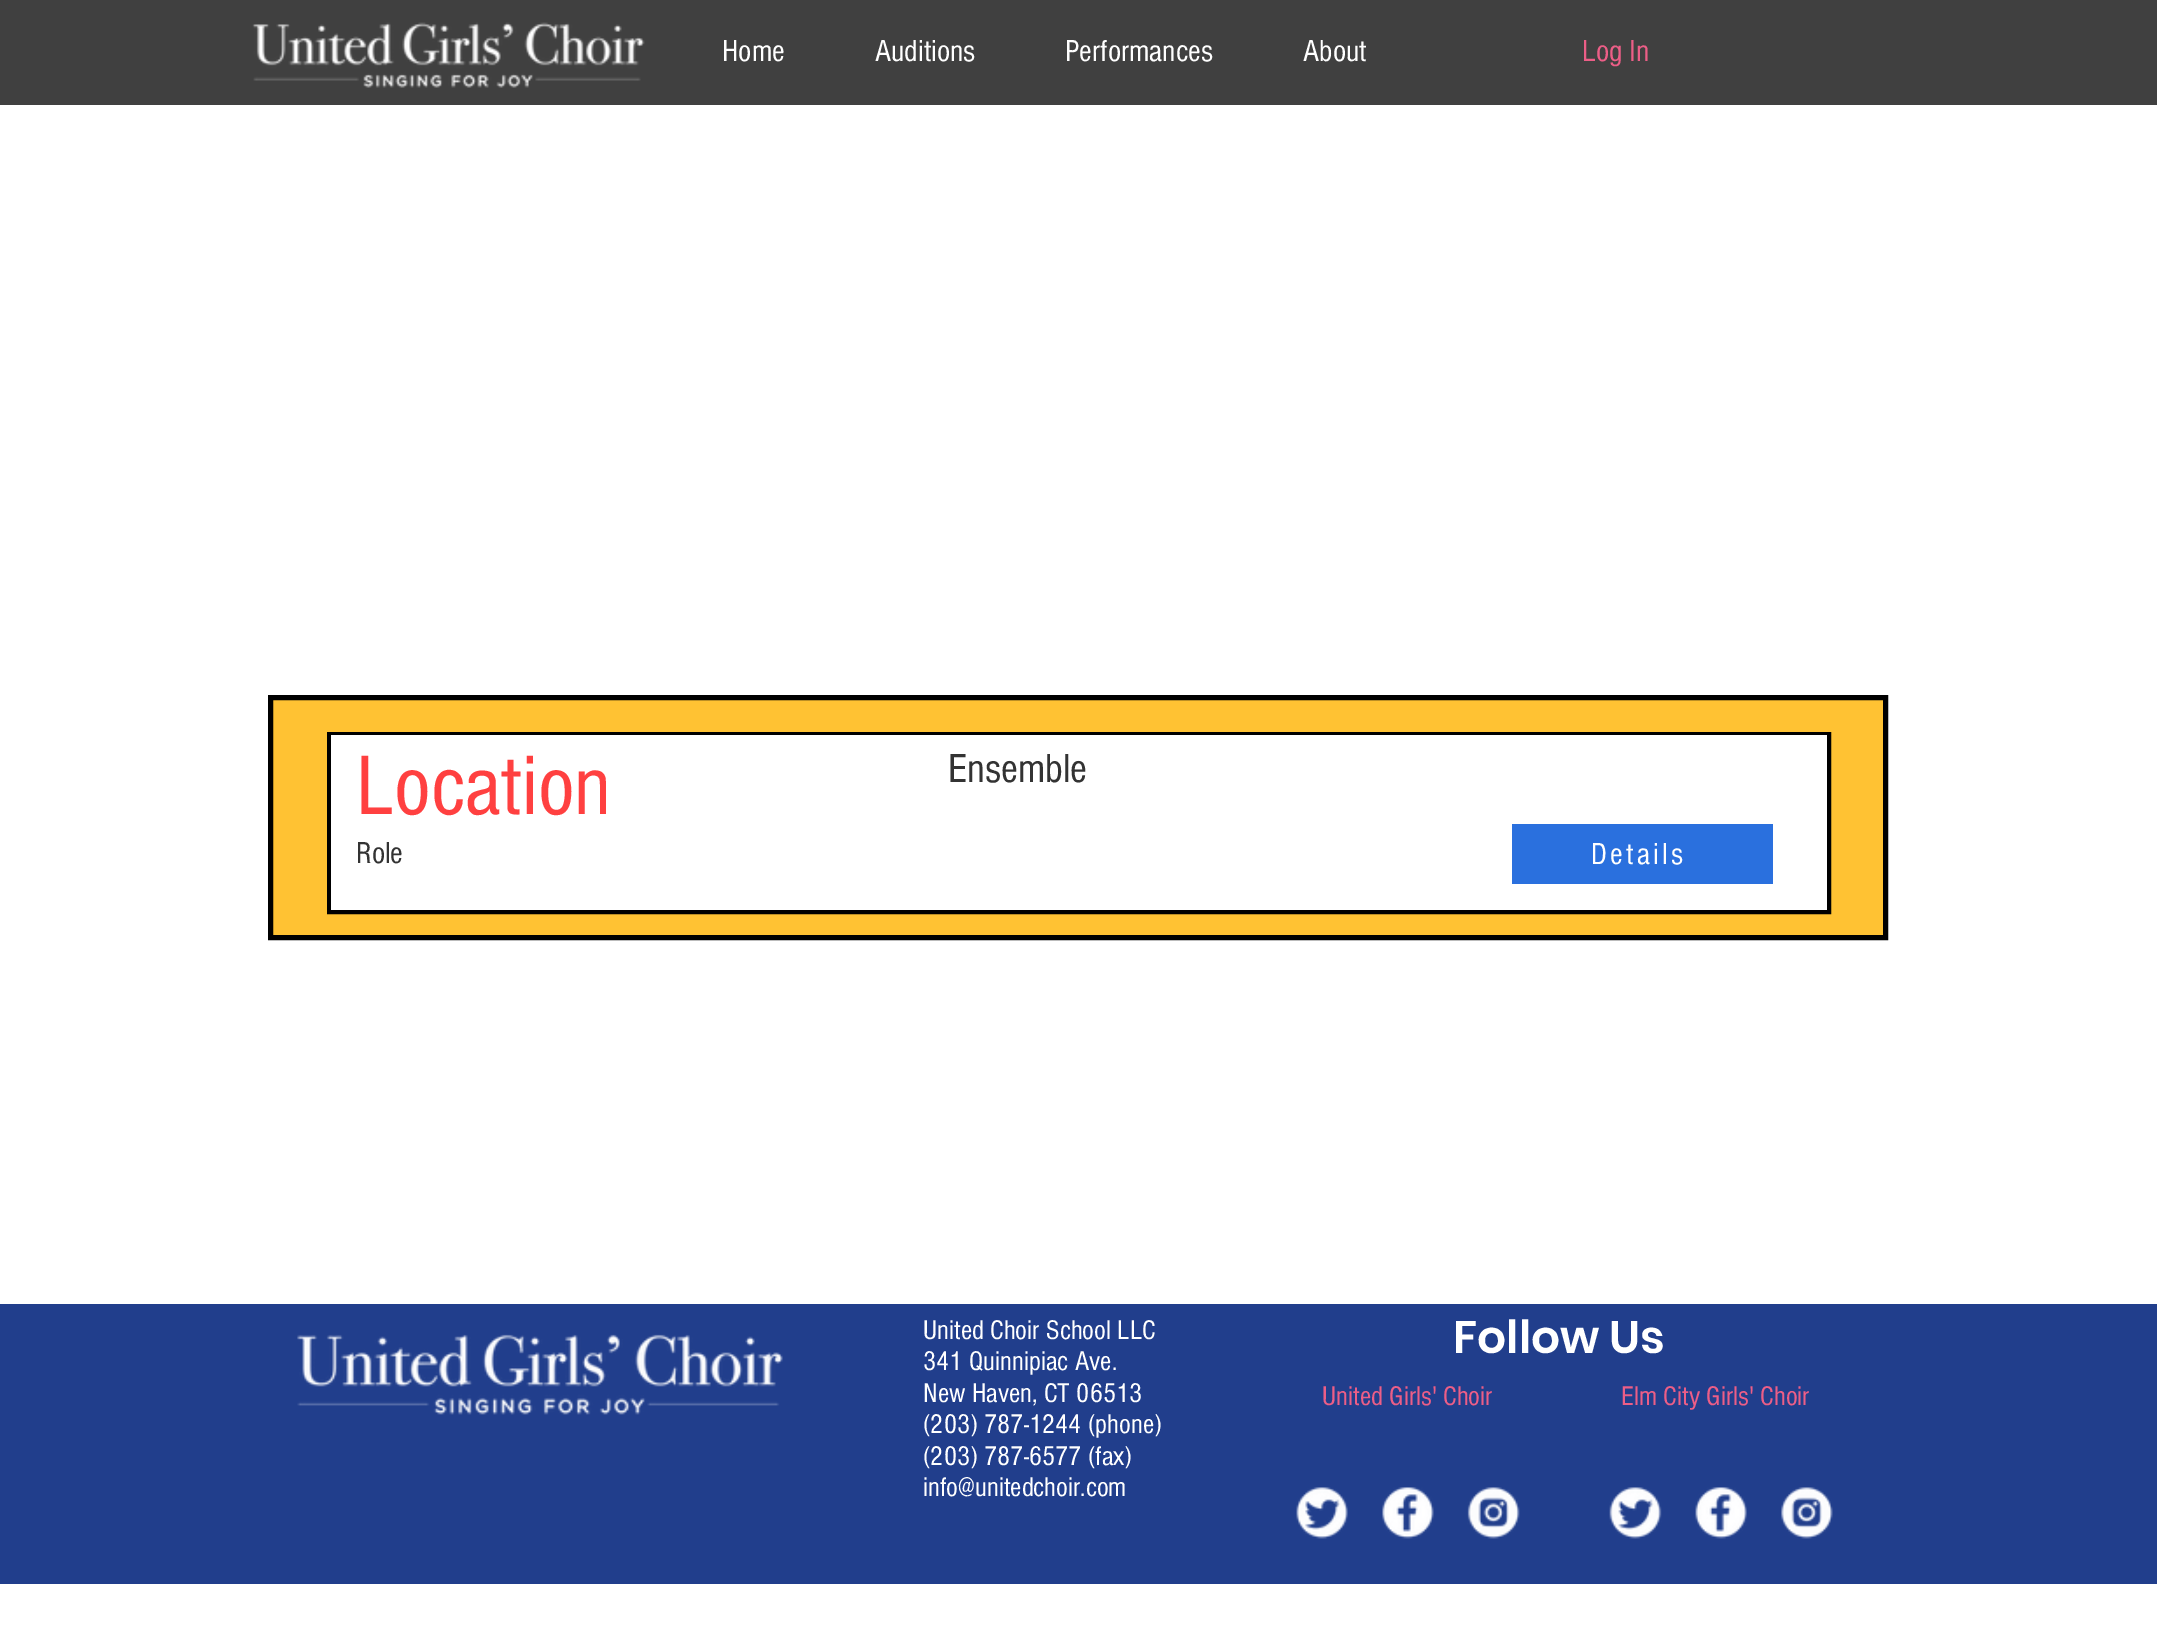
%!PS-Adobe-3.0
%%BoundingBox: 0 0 2157 1643
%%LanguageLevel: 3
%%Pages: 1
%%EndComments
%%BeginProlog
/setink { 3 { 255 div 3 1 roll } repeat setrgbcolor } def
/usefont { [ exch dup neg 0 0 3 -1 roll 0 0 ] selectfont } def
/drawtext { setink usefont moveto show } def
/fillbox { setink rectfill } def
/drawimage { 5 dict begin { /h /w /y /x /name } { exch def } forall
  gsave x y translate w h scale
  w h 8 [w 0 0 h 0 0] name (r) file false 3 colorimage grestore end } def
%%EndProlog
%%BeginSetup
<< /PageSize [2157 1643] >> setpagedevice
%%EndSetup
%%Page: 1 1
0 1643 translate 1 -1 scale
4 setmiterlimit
0 0 2157 1643 255 255 255 fillbox
0 0 2157 105 64 64 64 fillbox
(assets/img1.rgb) 252 22 393 66 drawimage
(Home) 722 61 /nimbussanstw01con-Regular 31.5 255 255 255 drawtext
(Auditions) 875 61 /nimbussanstw01con-Regular 31.5 255 255 255 drawtext
(Performances) 1065 61 /nimbussanstw01con-Regular 31.5 255 255 255 drawtext
(About) 1303 61 /nimbussanstw01con-Regular 31.5 255 255 255 drawtext
(Log In) 1582 61 /nimbussanstw01con-Regular 31.5 236 94 135 drawtext
255 194 51 setink
270.5 697.5 moveto 1885.5 697.5 lineto 1885.5 937.5 lineto 270.5 937.5 lineto closepath gsave fill grestore
0 0 0 setink
5 setlinewidth
stroke
4 setlinewidth
329 734 1500 178 rectstroke
331 735 1496 175 255 255 255 fillbox
(Location) 356 814 /nimbussanstw01con-Regular 87.5 255 64 64 drawtext
(Ensemble) 948 782 /nimbussanstw01con-Regular 42 51 51 51 drawtext
(Role) 356 863 /nimbussanstw01con-Regular 31.5 51 51 51 drawtext
1512 824 261 60 42 112 222 fillbox
255 255 255 setink
1591 864 moveto 3.25 0 (Details) ashow
0 1304 2157 280 33 62 140 fillbox
(assets/img2.rgb) 297 1334 486 81 drawimage
(United Choir School LLC) 923 1339 /nimbussanstw01con-Regular 28 255 255 255 drawtext
(341 Quinnipiac Ave.) 923 1370 /nimbussanstw01con-Regular 28 255 255 255 drawtext
(New Haven, CT 06513) 923 1402 /nimbussanstw01con-Regular 28 255 255 255 drawtext
(\(203\) 787-1244 \(phone\)) 923 1433 /nimbussanstw01con-Regular 28 255 255 255 drawtext
(\(203\) 787-6577 \(fax\)) 923 1465 /nimbussanstw01con-Regular 28 255 255 255 drawtext
(info@unitedchoir.com) 923 1496 /nimbussanstw01con-Regular 28 255 255 255 drawtext
(United Girls' Choir) 1322 1405 /nimbussanstw01con-Regular 28 236 94 135 drawtext
(Follow Us) 1453 1353 /Poppins-SemiBold 45.5 255 255 255 drawtext
(Elm City Girls' Choir) 1621 1405 /nimbussanstw01con-Regular 28 236 94 135 drawtext
(assets/img3.rgb) 1296 1487 52 52 drawimage
(assets/img4.rgb) 1382 1487 52 52 drawimage
(assets/img5.rgb) 1467 1487 53 52 drawimage
(assets/img6.rgb) 1609 1487 53 52 drawimage
(assets/img7.rgb) 1695 1487 52 52 drawimage
(assets/img8.rgb) 1781 1487 52 52 drawimage
showpage
%%EOF
